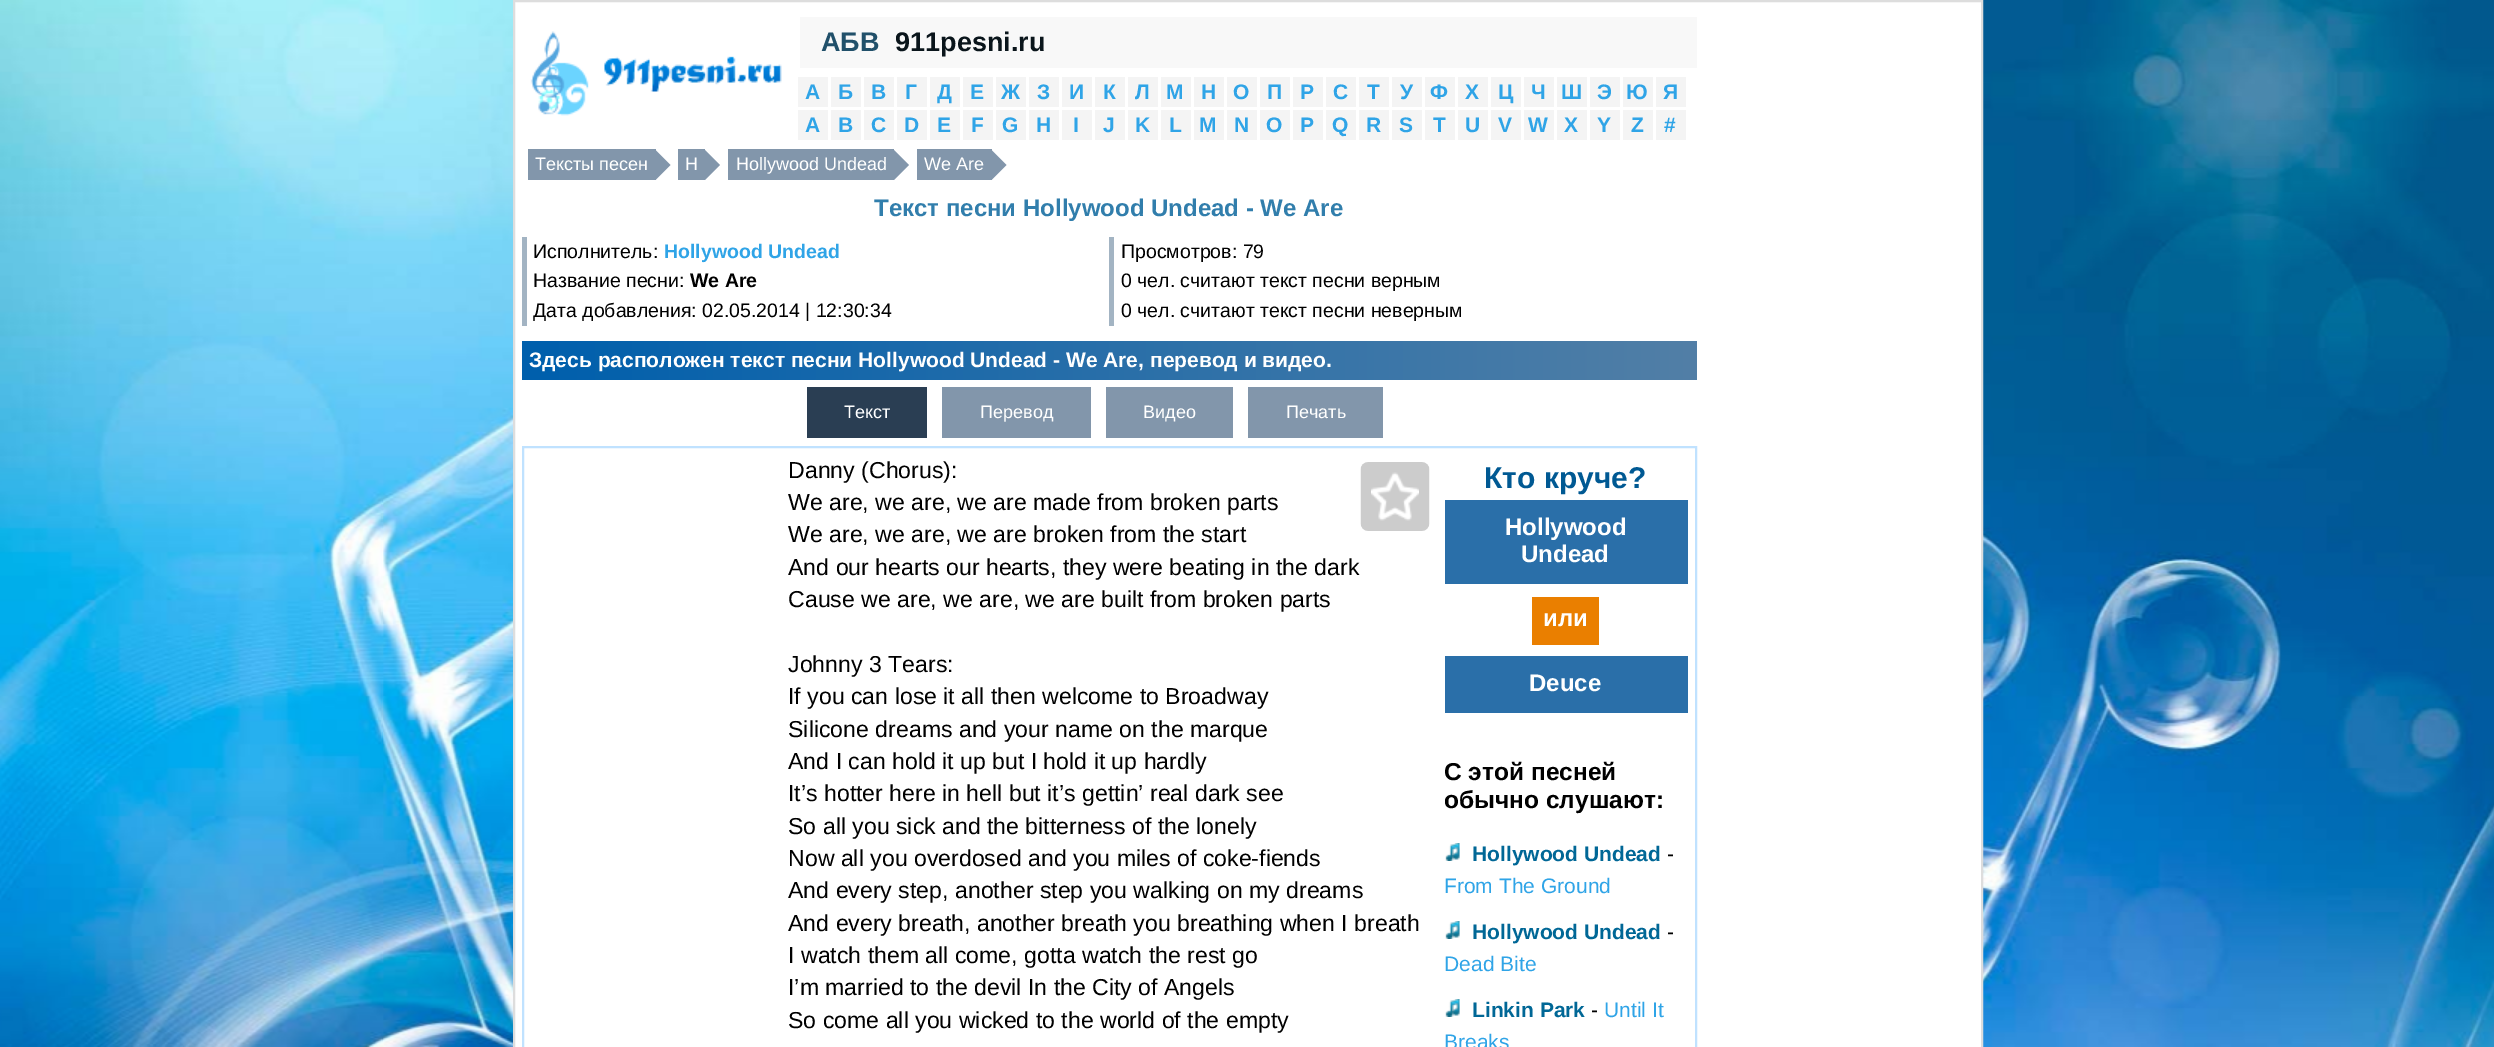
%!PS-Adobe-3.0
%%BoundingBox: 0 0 2494 1047
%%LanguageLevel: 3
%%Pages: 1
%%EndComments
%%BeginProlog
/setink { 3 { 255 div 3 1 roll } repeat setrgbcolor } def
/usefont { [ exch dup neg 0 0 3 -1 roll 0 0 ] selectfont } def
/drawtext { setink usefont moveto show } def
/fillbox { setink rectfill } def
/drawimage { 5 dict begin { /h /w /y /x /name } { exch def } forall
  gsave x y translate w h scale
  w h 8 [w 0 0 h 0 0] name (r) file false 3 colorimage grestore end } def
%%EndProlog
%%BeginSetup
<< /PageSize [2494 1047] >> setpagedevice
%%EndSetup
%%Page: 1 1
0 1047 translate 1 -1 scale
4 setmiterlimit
0 0 2494 1047 255 255 255 fillbox
(assets/img1.rgb) 0 0 2494 1047 drawimage
514 1 moveto 1982 1 lineto 1982 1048 lineto 514 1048 lineto closepath gsave fill grestore
221 221 221 setink
2 setlinewidth
stroke
800 17 897 51 248 248 248 fillbox
(АБВ) 821 51 /LiberationSans-Bold 27 33 80 106 drawtext
(911pesni.ru) 895 51 /LiberationSans-Bold 27 10 21 27 drawtext
798 77 30 30 244 244 244 fillbox
(А) 805 99 /LiberationSans-Bold 21 47 164 231 drawtext
831 77 30 30 244 244 244 fillbox
(Б) 838 99 /LiberationSans-Bold 21 47 164 231 drawtext
864 77 30 30 244 244 244 fillbox
(В) 871 99 /LiberationSans-Bold 21 47 164 231 drawtext
897 77 30 30 244 244 244 fillbox
(Г) 905 99 /LiberationSans-Bold 21 47 164 231 drawtext
930 77 30 30 244 244 244 fillbox
(Д) 937 99 /LiberationSans-Bold 21 47 164 231 drawtext
963 77 30 30 244 244 244 fillbox
(Е) 970 99 /LiberationSans-Bold 21 47 164 231 drawtext
996 77 30 30 244 244 244 fillbox
(Ж) 1001 99 /LiberationSans-Bold 21 47 164 231 drawtext
1029 77 30 30 244 244 244 fillbox
(З) 1037 99 /LiberationSans-Bold 21 47 164 231 drawtext
1062 77 30 30 244 244 244 fillbox
(И) 1069 99 /LiberationSans-Bold 21 47 164 231 drawtext
1095 77 30 30 244 244 244 fillbox
(К) 1103 99 /LiberationSans-Bold 21 47 164 231 drawtext
1128 77 30 30 244 244 244 fillbox
(Л) 1135 99 /LiberationSans-Bold 21 47 164 231 drawtext
1161 77 30 30 244 244 244 fillbox
(М) 1166 99 /LiberationSans-Bold 21 47 164 231 drawtext
1194 77 30 30 244 244 244 fillbox
(Н) 1201 99 /LiberationSans-Bold 21 47 164 231 drawtext
1227 77 30 30 244 244 244 fillbox
(О) 1233 99 /LiberationSans-Bold 21 47 164 231 drawtext
1260 77 30 30 244 244 244 fillbox
(П) 1267 99 /LiberationSans-Bold 21 47 164 231 drawtext
1293 77 30 30 244 244 244 fillbox
(Р) 1300 99 /LiberationSans-Bold 21 47 164 231 drawtext
1326 77 30 30 244 244 244 fillbox
(С) 1333 99 /LiberationSans-Bold 21 47 164 231 drawtext
1359 77 30 30 244 244 244 fillbox
(Т) 1367 99 /LiberationSans-Bold 21 47 164 231 drawtext
1392 77 30 30 244 244 244 fillbox
(У) 1400 99 /LiberationSans-Bold 21 47 164 231 drawtext
1425 77 30 30 244 244 244 fillbox
(Ф) 1430 99 /LiberationSans-Bold 21 47 164 231 drawtext
1458 77 30 30 244 244 244 fillbox
(Х) 1465 99 /LiberationSans-Bold 21 47 164 231 drawtext
1491 77 30 30 244 244 244 fillbox
(Ц) 1498 99 /LiberationSans-Bold 21 47 164 231 drawtext
1524 77 30 30 244 244 244 fillbox
(Ч) 1531 99 /LiberationSans-Bold 21 47 164 231 drawtext
1557 77 30 30 244 244 244 fillbox
(Ш) 1561 99 /LiberationSans-Bold 21 47 164 231 drawtext
1590 77 30 30 244 244 244 fillbox
(Э) 1597 99 /LiberationSans-Bold 21 47 164 231 drawtext
1623 77 30 30 244 244 244 fillbox
(Ю) 1626 99 /LiberationSans-Bold 21 47 164 231 drawtext
1656 77 30 30 244 244 244 fillbox
(Я) 1663 99 /LiberationSans-Bold 21 47 164 231 drawtext
798 110 30 30 244 244 244 fillbox
(A) 805 132 /LiberationSans-Bold 21 47 164 231 drawtext
831 110 30 30 244 244 244 fillbox
(B) 838 132 /LiberationSans-Bold 21 47 164 231 drawtext
864 110 30 30 244 244 244 fillbox
(C) 871 132 /LiberationSans-Bold 21 47 164 231 drawtext
897 110 30 30 244 244 244 fillbox
(D) 904 132 /LiberationSans-Bold 21 47 164 231 drawtext
930 110 30 30 244 244 244 fillbox
(E) 937 132 /LiberationSans-Bold 21 47 164 231 drawtext
963 110 30 30 244 244 244 fillbox
(F) 971 132 /LiberationSans-Bold 21 47 164 231 drawtext
996 110 30 30 244 244 244 fillbox
(G) 1002 132 /LiberationSans-Bold 21 47 164 231 drawtext
1029 110 30 30 244 244 244 fillbox
(H) 1036 132 /LiberationSans-Bold 21 47 164 231 drawtext
1062 110 30 30 244 244 244 fillbox
(I) 1073 132 /LiberationSans-Bold 21 47 164 231 drawtext
1095 110 30 30 244 244 244 fillbox
(J) 1103 132 /LiberationSans-Bold 21 47 164 231 drawtext
1128 110 30 30 244 244 244 fillbox
(K) 1135 132 /LiberationSans-Bold 21 47 164 231 drawtext
1161 110 30 30 244 244 244 fillbox
(L) 1169 132 /LiberationSans-Bold 21 47 164 231 drawtext
1194 110 30 30 244 244 244 fillbox
(M) 1199 132 /LiberationSans-Bold 21 47 164 231 drawtext
1227 110 30 30 244 244 244 fillbox
(N) 1234 132 /LiberationSans-Bold 21 47 164 231 drawtext
1260 110 30 30 244 244 244 fillbox
(O) 1266 132 /LiberationSans-Bold 21 47 164 231 drawtext
1293 110 30 30 244 244 244 fillbox
(P) 1300 132 /LiberationSans-Bold 21 47 164 231 drawtext
1326 110 30 30 244 244 244 fillbox
(Q) 1332 132 /LiberationSans-Bold 21 47 164 231 drawtext
1359 110 30 30 244 244 244 fillbox
(R) 1366 132 /LiberationSans-Bold 21 47 164 231 drawtext
1392 110 30 30 244 244 244 fillbox
(S) 1399 132 /LiberationSans-Bold 21 47 164 231 drawtext
1425 110 30 30 244 244 244 fillbox
(T) 1433 132 /LiberationSans-Bold 21 47 164 231 drawtext
1458 110 30 30 244 244 244 fillbox
(U) 1465 132 /LiberationSans-Bold 21 47 164 231 drawtext
1491 110 30 30 244 244 244 fillbox
(V) 1498 132 /LiberationSans-Bold 21 47 164 231 drawtext
1524 110 30 30 244 244 244 fillbox
(W) 1528 132 /LiberationSans-Bold 21 47 164 231 drawtext
1557 110 30 30 244 244 244 fillbox
(X) 1564 132 /LiberationSans-Bold 21 47 164 231 drawtext
1590 110 30 30 244 244 244 fillbox
(Y) 1597 132 /LiberationSans-Bold 21 47 164 231 drawtext
1623 110 30 30 244 244 244 fillbox
(Z) 1631 132 /LiberationSans-Bold 21 47 164 231 drawtext
1656 110 30 30 244 244 244 fillbox
(#) 1664 132 /LiberationSans-Bold 21 47 164 231 drawtext
528 149 128 31 130 150 171 fillbox
(Тексты песен) 535 170 /LiberationSans-Regular 18 255 255 255 drawtext
130 150 171 setink
655.5 180 moveto 655.5 150 lineto 670.5 165 lineto closepath fill
678 149 27 31 130 150 171 fillbox
(H) 685 170 /LiberationSans-Regular 18 255 255 255 drawtext
130 150 171 setink
705 180 moveto 705 150 lineto 720 165 lineto closepath fill
728 149 166 31 130 150 171 fillbox
(Hollywood Undead) 736 170 /LiberationSans-Regular 18 255 255 255 drawtext
130 150 171 setink
894 180 moveto 894 150 lineto 909 165 lineto closepath fill
917 149 75 31 130 150 171 fillbox
(We Are) 924 170 /LiberationSans-Regular 18 255 255 255 drawtext
130 150 171 setink
991.5 180 moveto 991.5 150 lineto 1006.5 165 lineto closepath fill
(Текст песни Hollywood Undead - We Are) 874 216 /LiberationSans-Bold 24 49 126 172 drawtext
522 237 5 89 163 180 195 fillbox
(Исполнитель:) 533 258 /LiberationSans-Regular 19.5 0 0 0 drawtext
(Hollywood Undead) 664 258 /LiberationSans-Bold 19.5 47 164 231 drawtext
(Название песни:) 533 287 /LiberationSans-Regular 19.5 0 0 0 drawtext
(We Are) 690 287 /LiberationSans-Bold 19.5 0 0 0 drawtext
(Дата добавления: 02.05.2014 | 12:30:34) 533 317 /LiberationSans-Regular 19.5 0 0 0 drawtext
1109 237 5 89 163 180 195 fillbox
(Просмотров: 79) 1121 258 /LiberationSans-Regular 19.5 0 0 0 drawtext
(0 чел. считают текст песни верным) 1121 287 /LiberationSans-Regular 19.5 0 0 0 drawtext
(0 чел. считают текст песни неверным) 1121 317 /LiberationSans-Regular 19.5 0 0 0 drawtext
gsave 522 341 moveto 1697 341 lineto 1697 380 lineto 522 380 lineto closepath clip newpath
<< /ShadingType 2 /ColorSpace /DeviceRGB /Coords [522 360 1697 360] /Extend [true true] /Function << /FunctionType 3 /Domain [0 1] /Functions [<< /FunctionType 2 /Domain [0 1] /C0 [0 0.373 0.675] /C1 [0 0.373 0.675] /N 1 >> << /FunctionType 2 /Domain [0 1] /C0 [0 0.373 0.675] /C1 [0.322 0.498 0.651] /N 1 >>] /Bounds [0.01] /Encode [0 1 0 1] >> >> shfill grestore
(Здесь расположен текст песни Hollywood Undead - We Are, перевод и видео.) 529 367 /LiberationSans-Bold 21 255 255 255 drawtext
807 387 120 51 42 62 83 fillbox
(Текст) 844 418 /LiberationSans-Regular 18 255 255 255 drawtext
942 387 149 51 130 150 171 fillbox
(Перевод) 980 418 /LiberationSans-Regular 18 255 255 255 drawtext
1106 387 127 51 130 150 171 fillbox
(Видео) 1143 418 /LiberationSans-Regular 18 255 255 255 drawtext
1248 387 135 51 130 150 171 fillbox
(Печать) 1286 418 /LiberationSans-Regular 18 255 255 255 drawtext
192 226 255 setink
523 447 1173 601 rectstroke
(Danny \(Chorus\):) 788 478 /LiberationSans-Regular 23.1 0 0 0 drawtext
(We are, we are, we are made from broken parts) 788 510 /LiberationSans-Regular 23.1 0 0 0 drawtext
(We are, we are, we are broken from the start) 788 542 /LiberationSans-Regular 23.1 0 0 0 drawtext
(And our hearts our hearts, they were beating in the dark) 788 575 /LiberationSans-Regular 23.1 0 0 0 drawtext
(Cause we are, we are, we are built from broken parts) 788 607 /LiberationSans-Regular 23.1 0 0 0 drawtext
(Johnny 3 Tears:) 788 672 /LiberationSans-Regular 23.1 0 0 0 drawtext
(If you can lose it all then welcome to Broadway) 788 704 /LiberationSans-Regular 23.1 0 0 0 drawtext
(Silicone dreams and your name on the marque) 788 737 /LiberationSans-Regular 23.1 0 0 0 drawtext
(And I can hold it up but I hold it up hardly) 788 769 /LiberationSans-Regular 23.1 0 0 0 drawtext
(It’s hotter here in hell but it’s gettin’ real dark see) 788 801 /LiberationSans-Regular 23.1 0 0 0 drawtext
(So all you sick and the bitterness of the lonely) 788 834 /LiberationSans-Regular 23.1 0 0 0 drawtext
(Now all you overdosed and you miles of coke-fiends) 788 866 /LiberationSans-Regular 23.1 0 0 0 drawtext
(And every step, another step you walking on my dreams) 788 898 /LiberationSans-Regular 23.1 0 0 0 drawtext
(And every breath, another breath you breathing when I breath) 788 931 /LiberationSans-Regular 23.1 0 0 0 drawtext
(I watch them all come, gotta watch the rest go) 788 963 /LiberationSans-Regular 23.1 0 0 0 drawtext
(I’m married to the devil In the City of Angels) 788 995 /LiberationSans-Regular 23.1 0 0 0 drawtext
(So come all you wicked to the world of the empty) 788 1028 /LiberationSans-Regular 23.1 0 0 0 drawtext
(assets/img2.rgb) 1360 462 70 69 drawimage
(assets/img3.rgb) 1371 472 48 49 drawimage
(Кто круче?) 1484 488 /LiberationSans-Bold 30 0 89 147 drawtext
1445 500 243 84 42 111 169 fillbox
(Hollywood) 1505 535 /LiberationSans-Bold 24 255 255 255 drawtext
(Undead) 1521 562 /LiberationSans-Bold 24 255 255 255 drawtext
1532 597 67 48 234 127 0 fillbox
(или) 1543 626 /LiberationSans-Bold 24 255 255 255 drawtext
1445 656 243 57 42 111 169 fillbox
(Deuce) 1529 691 /LiberationSans-Bold 24 255 255 255 drawtext
(С этой песней) 1444 780 /LiberationSans-Bold 24.5 0 0 0 drawtext
(обычно слушают:) 1444 808 /LiberationSans-Bold 24.5 0 0 0 drawtext
(assets/img4.rgb) 1445 843 15 18 drawimage
(Hollywood Undead) 1472 861 /LiberationSans-Bold 21 0 103 150 drawtext
(-) 1667 861 /LiberationSans-Regular 21 0 0 0 drawtext
(From The Ground) 1444 893 /LiberationSans-Regular 21 47 164 231 drawtext
(assets/img4.rgb) 1445 921 15 18 drawimage
(Hollywood Undead) 1472 939 /LiberationSans-Bold 21 0 103 150 drawtext
(-) 1667 939 /LiberationSans-Regular 21 0 0 0 drawtext
(Dead Bite) 1444 971 /LiberationSans-Regular 21 47 164 231 drawtext
(assets/img4.rgb) 1445 999 15 18 drawimage
(Linkin Park) 1472 1017 /LiberationSans-Bold 21 0 103 150 drawtext
(-) 1591 1017 /LiberationSans-Regular 21 0 0 0 drawtext
(Until It) 1604 1017 /LiberationSans-Regular 21 47 164 231 drawtext
(Breaks) 1444 1049 /LiberationSans-Regular 21 47 164 231 drawtext
(assets/img5.rgb) 530 31 252 85 drawimage
showpage
%%EOF
